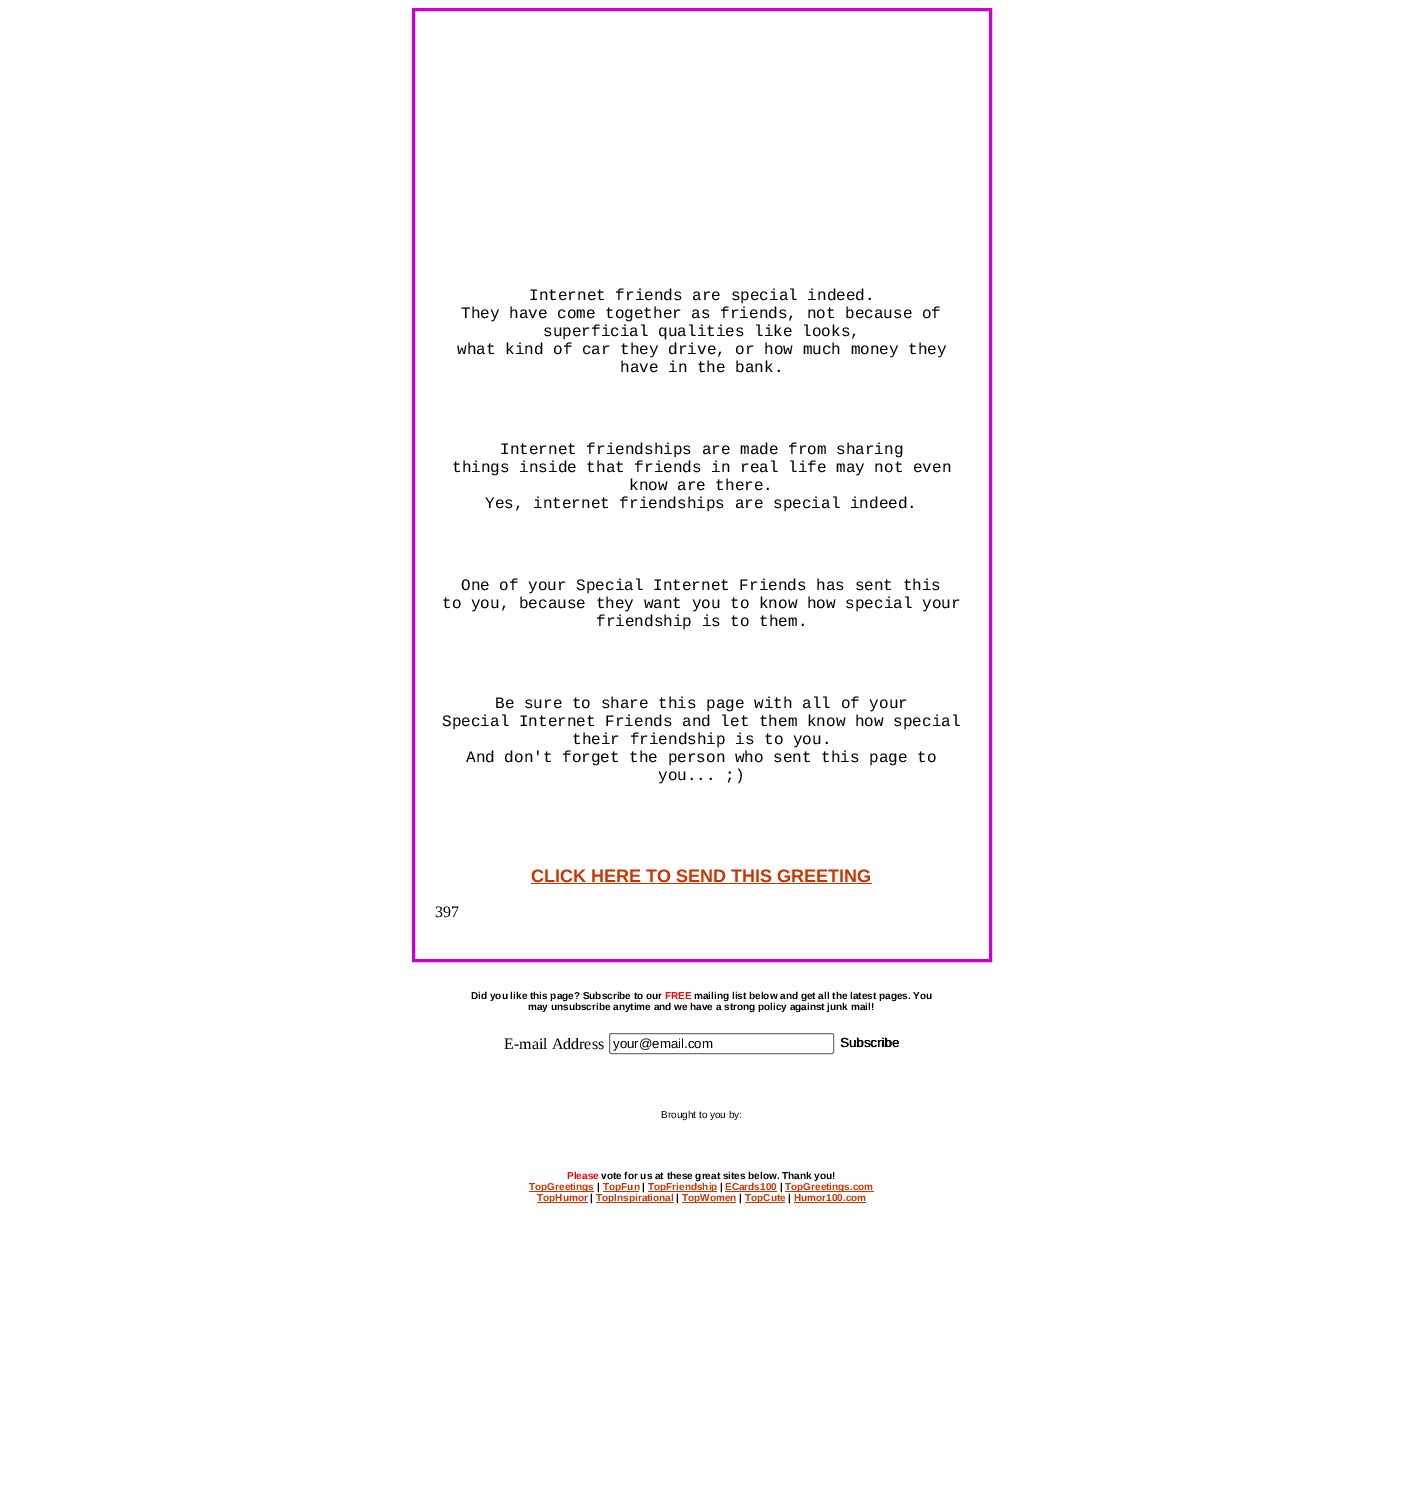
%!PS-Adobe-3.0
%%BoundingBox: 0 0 1403 1509
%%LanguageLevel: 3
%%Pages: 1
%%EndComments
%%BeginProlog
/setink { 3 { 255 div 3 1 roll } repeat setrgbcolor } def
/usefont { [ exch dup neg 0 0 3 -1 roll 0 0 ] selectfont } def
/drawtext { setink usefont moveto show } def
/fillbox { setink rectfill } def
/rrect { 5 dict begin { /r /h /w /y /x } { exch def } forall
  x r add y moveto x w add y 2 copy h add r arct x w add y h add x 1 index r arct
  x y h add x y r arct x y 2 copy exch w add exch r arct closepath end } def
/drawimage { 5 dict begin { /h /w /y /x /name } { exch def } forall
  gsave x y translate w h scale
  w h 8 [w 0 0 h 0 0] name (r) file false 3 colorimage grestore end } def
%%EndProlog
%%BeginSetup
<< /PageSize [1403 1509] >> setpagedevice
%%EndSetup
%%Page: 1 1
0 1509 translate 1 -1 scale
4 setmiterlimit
0 0 1403 1509 255 255 255 fillbox
204 0 204 setink
2 setlinewidth
413 9 578 952 rectstroke
1 setlinewidth
414.5 10.5 575 949 rectstroke
(Internet friends are special indeed.) 529 300 /LiberationMono-Regular 16 0 0 0 drawtext
(They have come together as friends, not because of) 461 318 /LiberationMono-Regular 16 0 0 0 drawtext
(superficial qualities like looks,) 543 336 /LiberationMono-Regular 16 0 0 0 drawtext
(what kind of car they drive, or how much money they) 457 354 /LiberationMono-Regular 16 0 0 0 drawtext
(have in the bank.) 620 372 /LiberationMono-Regular 16 0 0 0 drawtext
(Internet friendships are made from sharing) 500 454 /LiberationMono-Regular 16 0 0 0 drawtext
(things inside that friends in real life may not even) 452 472 /LiberationMono-Regular 16 0 0 0 drawtext
(know are there.) 629 490 /LiberationMono-Regular 16 0 0 0 drawtext
(Yes, internet friendships are special indeed.) 485 508 /LiberationMono-Regular 16 0 0 0 drawtext
(One of your Special Internet Friends has sent this) 461 590 /LiberationMono-Regular 16 0 0 0 drawtext
(to you, because they want you to know how special your) 442 608 /LiberationMono-Regular 16 0 0 0 drawtext
(friendship is to them.) 596 626 /LiberationMono-Regular 16 0 0 0 drawtext
(Be sure to share this page with all of your) 495 708 /LiberationMono-Regular 16 0 0 0 drawtext
(Special Internet Friends and let them know how special) 442 726 /LiberationMono-Regular 16 0 0 0 drawtext
(their friendship is to you.) 572 744 /LiberationMono-Regular 16 0 0 0 drawtext
(And don't forget the person who sent this page to) 466 762 /LiberationMono-Regular 16 0 0 0 drawtext
(you... ;\)) 658 780 /LiberationMono-Regular 16 0 0 0 drawtext
(CLICK HERE TO SEND THIS GREETING) 531 882 /LiberationSans-Bold 18 204 51 0 drawtext
531 883 341 1 204 51 0 fillbox
(397) 435 917 /LiberationSerif-Regular 16 0 0 0 drawtext
(Did you like this page? Subscribe to our) 471 999 /LiberationSans-Bold 10 0 0 0 drawtext
(FREE) 665 999 /LiberationSans-Bold 10 255 0 0 drawtext
(mailing list below and get all the latest pages. You) 694 999 /LiberationSans-Bold 10 0 0 0 drawtext
(may unsubscribe anytime and we have a strong policy against junk mail!) 528 1010 /LiberationSans-Bold 10 0 0 0 drawtext
(E-mail Address) 504 1049 /LiberationSerif-Regular 16 0 0 0 drawtext
118 118 118 setink
609.5 1033.5 224 20 1.5 rrect stroke
(your@email.com) 613 1048 /LiberationSans-Regular 13.25 0 0 0 drawtext
(assets/img1.rgb) 841 1038 58 9 drawimage
(Subscribe) 840 1047 /LiberationSans-Regular 13.25 0 0 0 drawtext
(Brought to you by:) 661 1118 /LiberationSans-Regular 10 0 0 0 drawtext
(Please) 567 1179 /LiberationSans-Bold 10 255 0 0 drawtext
(vote for us at these great sites below. Thank you!) 601 1179 /LiberationSans-Bold 10 0 0 0 drawtext
529 1191 65 1 204 51 0 fillbox
(TopGreetings) 529 1190 /LiberationSans-Bold 10 204 51 0 drawtext
(|) 597 1190 /LiberationSans-Bold 10 0 0 0 drawtext
603 1191 36 1 204 51 0 fillbox
(TopFun) 603 1190 /LiberationSans-Bold 10 204 51 0 drawtext
(|) 642 1190 /LiberationSans-Bold 10 0 0 0 drawtext
648 1191 69 1 204 51 0 fillbox
(TopFriendship) 648 1190 /LiberationSans-Bold 10 204 51 0 drawtext
(|) 720 1190 /LiberationSans-Bold 10 0 0 0 drawtext
(ECards100) 725 1190 /LiberationSans-Bold 10 204 51 0 drawtext
725 1191 52 1 204 51 0 fillbox
(|) 780 1190 /LiberationSans-Bold 10 0 0 0 drawtext
785 1191 89 1 204 51 0 fillbox
(TopGreetings.com) 785 1190 /LiberationSans-Bold 10 204 51 0 drawtext
537 1202 51 1 204 51 0 fillbox
(TopHumor) 537 1201 /LiberationSans-Bold 10 204 51 0 drawtext
(|) 590 1201 /LiberationSans-Bold 10 0 0 0 drawtext
596 1202 78 1 204 51 0 fillbox
(TopInspirational) 596 1201 /LiberationSans-Bold 10 204 51 0 drawtext
(|) 676 1201 /LiberationSans-Bold 10 0 0 0 drawtext
682 1202 54 1 204 51 0 fillbox
(TopWomen) 682 1201 /LiberationSans-Bold 10 204 51 0 drawtext
(|) 739 1201 /LiberationSans-Bold 10 0 0 0 drawtext
745 1202 40 1 204 51 0 fillbox
(TopCute) 745 1201 /LiberationSans-Bold 10 204 51 0 drawtext
(|) 788 1201 /LiberationSans-Bold 10 0 0 0 drawtext
(Humor100.com) 794 1201 /LiberationSans-Bold 10 204 51 0 drawtext
794 1202 72 1 204 51 0 fillbox
showpage
%%EOF
